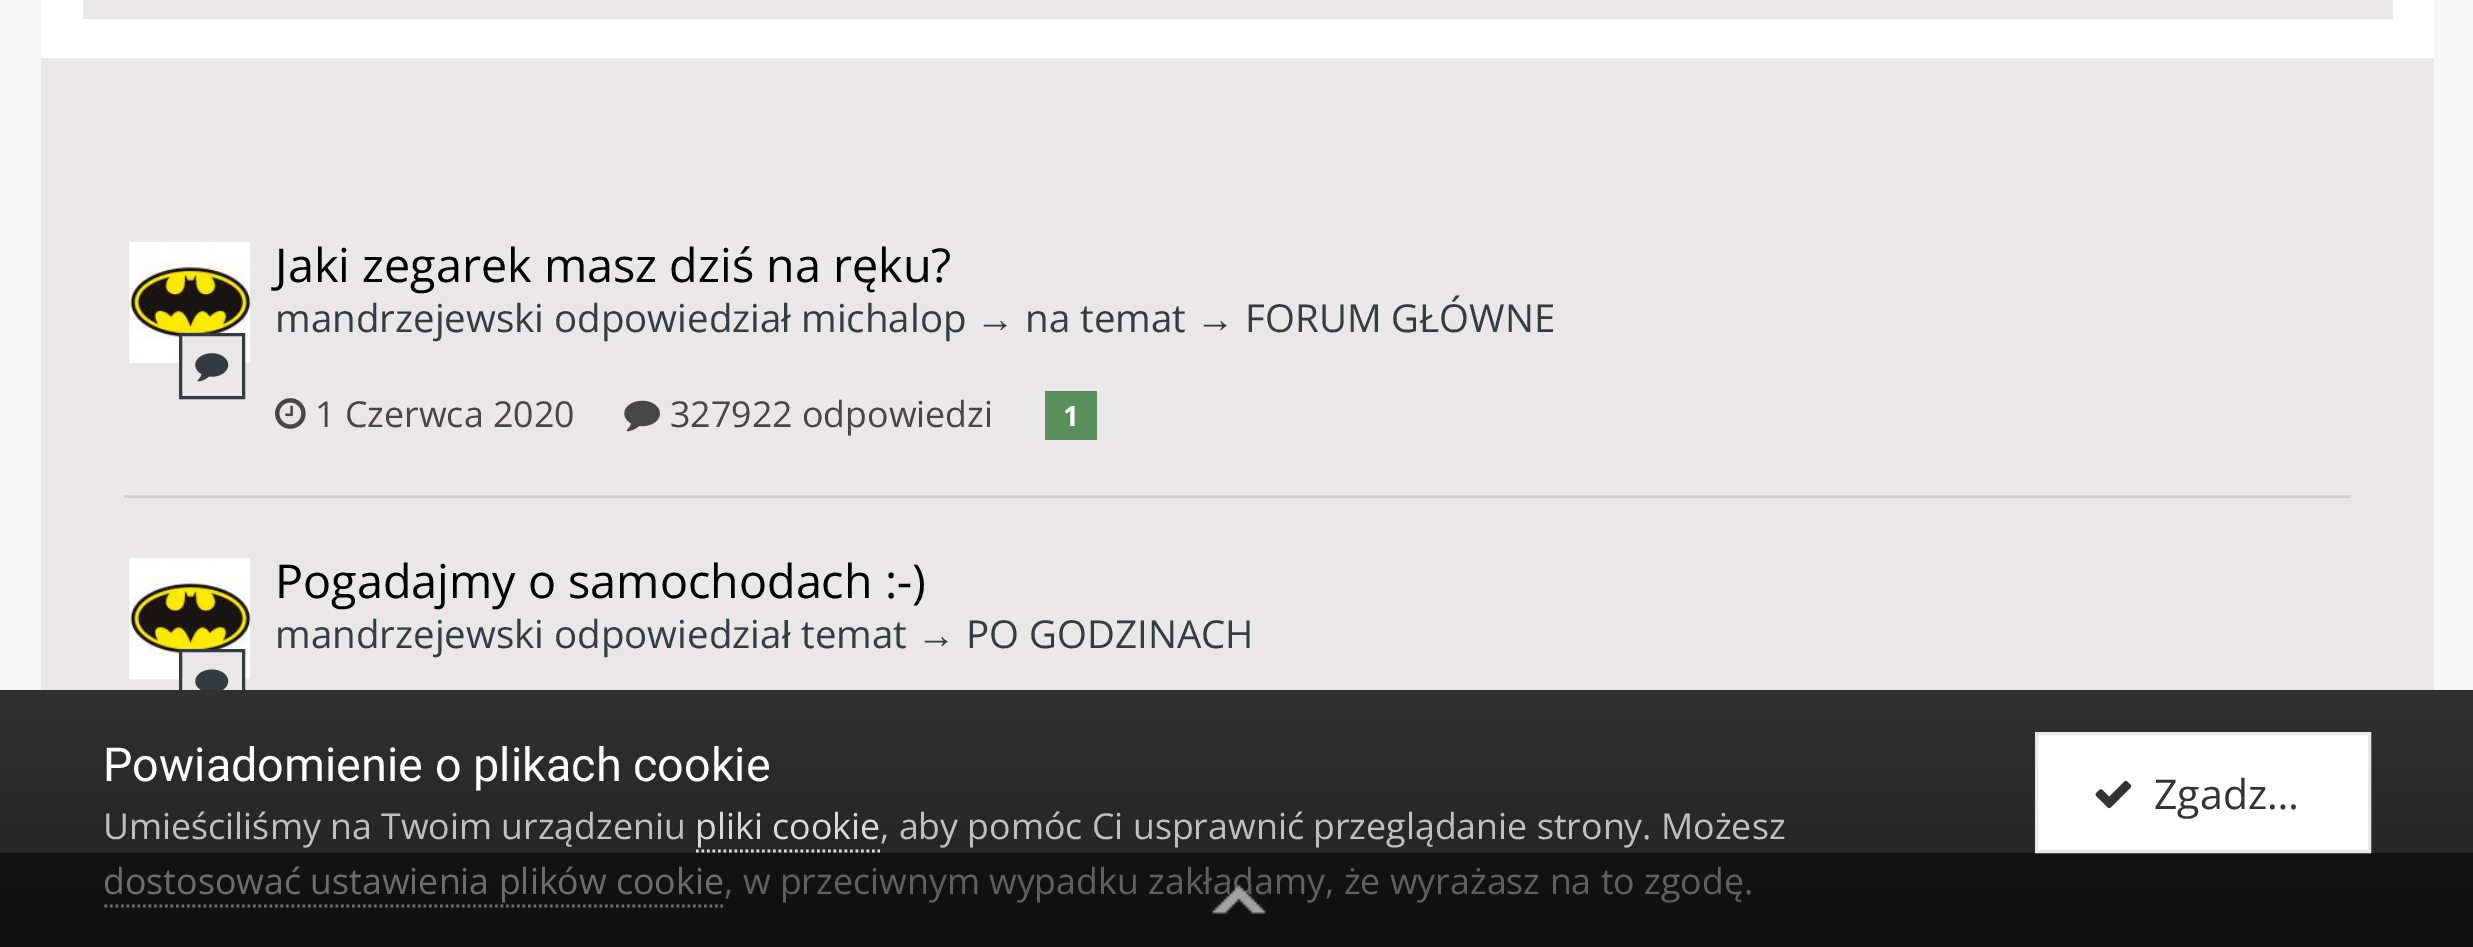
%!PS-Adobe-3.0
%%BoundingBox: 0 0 2473 947
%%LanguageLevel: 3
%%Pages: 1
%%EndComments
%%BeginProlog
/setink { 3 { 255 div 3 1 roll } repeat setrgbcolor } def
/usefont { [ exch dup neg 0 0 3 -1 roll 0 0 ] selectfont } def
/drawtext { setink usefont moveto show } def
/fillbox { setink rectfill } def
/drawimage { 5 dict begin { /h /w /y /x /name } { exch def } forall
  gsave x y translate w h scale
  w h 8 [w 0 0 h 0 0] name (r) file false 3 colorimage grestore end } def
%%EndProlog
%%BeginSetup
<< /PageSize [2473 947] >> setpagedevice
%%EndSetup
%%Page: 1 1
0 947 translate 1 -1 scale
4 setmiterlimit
0 0 2473 947 247 247 247 fillbox
41 58 2393 632 233 231 231 fillbox
41 0 2393 58 255 255 255 fillbox
230 230 230 setink
83 16 moveto 83 19 lineto 2393 19 lineto 2393 -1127 lineto 2392 -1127 lineto 2392 16 lineto closepath fill
83 0 2310 17 233 231 231 fillbox
124 495 2227 3 210 208 208 fillbox
(assets/img1.rgb) 129 242 122 121 drawimage
(Jaki zegarek masz dziś na ręku?) 275 282 /OpenSans-Regular 46.75 0 0 0 drawtext
(mandrzejewski odpowiedział michalop) 275 332 /OpenSans-Regular 38.5 53 60 65 drawtext
(→) 976 332 /LiberationSans-Regular 38.5 53 60 65 drawtext
(na temat) 1025 332 /OpenSans-Regular 38.5 53 60 65 drawtext
(→) 1196 332 /LiberationSans-Regular 38.5 53 60 65 drawtext
(FORUM GŁÓWNE) 1245 332 /OpenSans-Regular 38.5 53 60 65 drawtext
182 336 60 27 233 231 231 fillbox
53 60 65 setink
3 setlinewidth
180.5 334.5 63 63 rectstroke
(assets/img2.rgb) 195 353 34 29 drawimage
(assets/img3.rgb) 275 398 31 31 drawimage
(1 Czerwca 2020) 315 427 /OpenSans-Regular 35.75 70 70 70 drawtext
(assets/img4.rgb) 624 400 36 32 drawimage
(327922 odpowiedzi) 670 427 /OpenSans-Regular 35.75 70 70 70 drawtext
1045 391 52 49 89 143 91 fillbox
(1) 1063 426 /OpenSans-Bold 28 255 255 255 drawtext
(assets/img5.rgb) 129 558 122 122 drawimage
(Pogadajmy o samochodach :-\)) 275 598 /OpenSans-Regular 46.75 0 0 0 drawtext
(mandrzejewski odpowiedzia) 275 648 /OpenSans-Regular 38.5 53 60 65 drawtext
(ł) 782 648 /LiberationSans-Regular 38.5 53 60 65 drawtext
(temat) 801 648 /OpenSans-Regular 38.5 53 60 65 drawtext
(→) 917 648 /LiberationSans-Regular 38.5 53 60 65 drawtext
(PO GODZINACH) 966 648 /OpenSans-Regular 38.5 53 60 65 drawtext
182 652 60 28 233 231 231 fillbox
53 60 65 setink
180.5 650.5 63 63 rectstroke
(assets/img6.rgb) 195 669 34 21 drawimage
gsave 0 690 moveto 2473 690 lineto 2473 853 lineto 0 853 lineto closepath clip newpath
<< /ShadingType 2 /ColorSpace /DeviceRGB /Coords [1238 690 1238 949] /Extend [true true] /Function << /FunctionType 2 /Domain [0 1] /C0 [0.192 0.192 0.192] /C1 [0.125 0.125 0.125] /N 1 >> >> shfill grestore
gsave 0 853 moveto 2473 853 lineto 2473 947 lineto 0 947 lineto closepath clip newpath
<< /ShadingType 2 /ColorSpace /DeviceRGB /Coords [1238 690 1238 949] /Extend [true true] /Function << /FunctionType 2 /Domain [0 1] /C0 [0.098 0.098 0.098] /C1 [0.063 0.063 0.063] /N 1 >> >> shfill grestore
(Powiadomienie o plikach cookie) 103 781 /Roboto-Regular 46.75 255 255 255 drawtext
(Umieściliśmy na Twoim urządzeniu) 103 839 /OpenSans-Regular 35.75 192 192 192 drawtext
(pliki cookie) 695 839 /OpenSans-Regular 35.75 218 218 218 drawtext
2.8 setlinewidth
[2.75 2.75] 0 setdash
696 851 moveto 880 851 lineto stroke
(, aby pomóc Ci usprawnić przeglądanie strony. Możesz) 880 839 /OpenSans-Regular 35.75 192 192 192 drawtext
(dostosować ustawienia plików cookie) 103 894 /OpenSans-Regular 35.75 109 109 109 drawtext
104.5 906 moveto 723 906 lineto stroke
(, w przeciwnym wypadku zakładamy, że wyrażasz na to zgodę.) 724 894 /OpenSans-Regular 35.75 96 96 96 drawtext
255 255 255 setink
2036.5 733.5 moveto 2369.5 733.5 lineto 2369.5 851.5 lineto 2036.5 851.5 lineto closepath gsave fill grestore
232 232 232 setink
3 setlinewidth
[] 0 setdash
stroke
(assets/img7.rgb) 2095 780 37 29 drawimage
(Zgadz…) 2154 809 /OpenSans-Regular 41 51 51 51 drawtext
(assets/img8.rgb) 1212 884 54 30 drawimage
showpage
%%EOF
